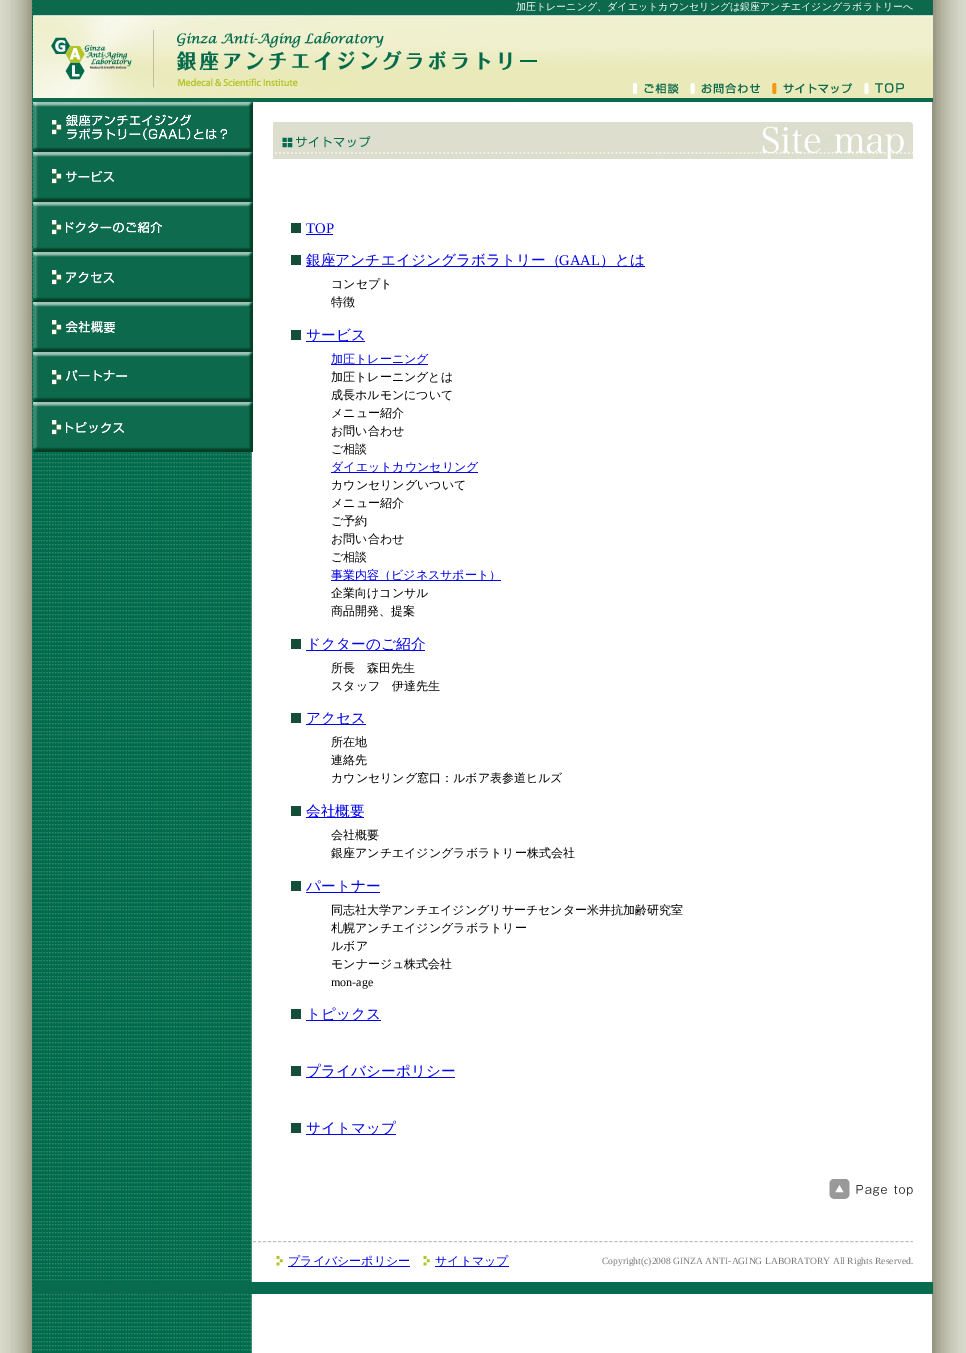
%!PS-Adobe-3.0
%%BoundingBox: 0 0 966 1353
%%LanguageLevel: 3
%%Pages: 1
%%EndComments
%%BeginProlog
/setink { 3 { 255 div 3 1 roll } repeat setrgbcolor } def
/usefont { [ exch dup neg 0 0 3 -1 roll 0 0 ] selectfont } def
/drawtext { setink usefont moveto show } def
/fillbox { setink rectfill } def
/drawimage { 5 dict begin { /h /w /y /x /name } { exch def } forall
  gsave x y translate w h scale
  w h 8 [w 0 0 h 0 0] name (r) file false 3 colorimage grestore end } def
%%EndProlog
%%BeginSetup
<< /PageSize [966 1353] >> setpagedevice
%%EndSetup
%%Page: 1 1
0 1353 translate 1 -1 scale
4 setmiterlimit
0 0 966 1353 255 255 255 fillbox
(assets/img1.rgb) 0 0 966 1353 drawimage
33 0 900 15 13 105 76 fillbox
(加圧トレーニング、ダイエットカウンセリングは銀座アンチエイジングラボラトリーへ) 516 10 /WenQuanYiZenHei-Medium 10 255 255 255 drawtext
(assets/img2.rgb) 537 15 396 83 drawimage
(assets/img3.rgb) 33 15 504 83 drawimage
(assets/img4.rgb) 633 83 46 11 drawimage
(assets/img5.rgb) 690 83 70 11 drawimage
(assets/img6.rgb) 772 83 80 11 drawimage
(assets/img7.rgb) 864 83 40 11 drawimage
33 98 900 4 13 105 76 fillbox
(assets/img8.rgb) 33 102 220 50 drawimage
(assets/img9.rgb) 33 152 220 50 drawimage
(assets/img10.rgb) 33 202 220 50 drawimage
(assets/img11.rgb) 33 252 220 50 drawimage
(assets/img12.rgb) 33 302 220 50 drawimage
(assets/img13.rgb) 33 352 220 50 drawimage
(assets/img14.rgb) 33 402 220 50 drawimage
191 191 191 setink
[3 2.02] 0 setdash
253 1241.5 moveto 913 1241.5 lineto stroke
(assets/img15.rgb) 273 122 640 37 drawimage
291 223 10 10 20 77 56 fillbox
(TOP) 306 233 /LiberationSerif-Regular 14.7 0 0 238 drawtext
306 234 27 1 0 0 238 fillbox
291 255 10 10 20 77 56 fillbox
306 266 339 1 0 0 238 fillbox
(銀座アンチエイジングラボラトリー（) 306 265 /WenQuanYiZenHei-Medium 14.7 0 0 238 drawtext
(GAAL) 559 265 /LiberationSerif-Regular 14.7 0 0 238 drawtext
(）とは) 600 265 /WenQuanYiZenHei-Medium 14.7 0 0 238 drawtext
(コンセプト) 331 288 /WenQuanYiZenHei-Medium 12 0 0 0 drawtext
(特徴) 331 306 /WenQuanYiZenHei-Medium 12 0 0 0 drawtext
291 330 10 10 20 77 56 fillbox
306 341 59 1 0 0 238 fillbox
(サービス) 306 340 /WenQuanYiZenHei-Medium 14.7 0 0 238 drawtext
331 364 97 1 0 0 238 fillbox
(加圧トレーニング) 331 363 /WenQuanYiZenHei-Medium 12 0 0 238 drawtext
(加圧トレーニングとは) 331 381 /WenQuanYiZenHei-Medium 12 0 0 0 drawtext
(成長ホルモンについて) 331 399 /WenQuanYiZenHei-Medium 12 0 0 0 drawtext
(メニュー紹介) 331 417 /WenQuanYiZenHei-Medium 12 0 0 0 drawtext
(お問い合わせ) 331 435 /WenQuanYiZenHei-Medium 12 0 0 0 drawtext
(ご相談) 331 453 /WenQuanYiZenHei-Medium 12 0 0 0 drawtext
331 472 147 1 0 0 238 fillbox
(ダイエットカウンセリング) 331 471 /WenQuanYiZenHei-Medium 12 0 0 238 drawtext
(カウンセリングいついて) 331 489 /WenQuanYiZenHei-Medium 12 0 0 0 drawtext
(メニュー紹介) 331 507 /WenQuanYiZenHei-Medium 12 0 0 0 drawtext
(ご予約) 331 525 /WenQuanYiZenHei-Medium 12 0 0 0 drawtext
(お問い合わせ) 331 543 /WenQuanYiZenHei-Medium 12 0 0 0 drawtext
(ご相談) 331 561 /WenQuanYiZenHei-Medium 12 0 0 0 drawtext
331 580 170 1 0 0 238 fillbox
(事業内容（ビジネスサポート）) 331 579 /WenQuanYiZenHei-Medium 12 0 0 238 drawtext
(企業向けコンサル) 331 597 /WenQuanYiZenHei-Medium 12 0 0 0 drawtext
(商品開発、提案) 331 615 /WenQuanYiZenHei-Medium 12 0 0 0 drawtext
291 639 10 10 20 77 56 fillbox
306 650 119 1 0 0 238 fillbox
(ドクターのご紹介) 306 649 /WenQuanYiZenHei-Medium 14.7 0 0 238 drawtext
(所長　森田先生) 331 672 /WenQuanYiZenHei-Medium 12 0 0 0 drawtext
(スタッフ　伊達先生) 331 690 /WenQuanYiZenHei-Medium 12 0 0 0 drawtext
291 713 10 10 20 77 56 fillbox
306 724 60 1 0 0 238 fillbox
(アクセス) 306 723 /WenQuanYiZenHei-Medium 14.7 0 0 238 drawtext
(所在地) 331 746 /WenQuanYiZenHei-Medium 12 0 0 0 drawtext
(連絡先) 331 764 /WenQuanYiZenHei-Medium 12 0 0 0 drawtext
(カウンセリング窓口：ルボア表参道ヒルズ) 331 782 /WenQuanYiZenHei-Medium 12 0 0 0 drawtext
291 806 10 10 20 77 56 fillbox
306 817 58 1 0 0 238 fillbox
(会社概要) 306 816 /WenQuanYiZenHei-Medium 14.7 0 0 238 drawtext
(会社概要) 331 839 /WenQuanYiZenHei-Medium 12 0 0 0 drawtext
(銀座アンチエイジングラボラトリー株式会社) 331 857 /WenQuanYiZenHei-Medium 12 0 0 0 drawtext
291 881 10 10 20 77 56 fillbox
306 892 74 1 0 0 238 fillbox
(パートナー) 306 891 /WenQuanYiZenHei-Medium 14.7 0 0 238 drawtext
(同志社大学アンチエイジングリサーチセンター米井抗加齢研究室) 331 914 /WenQuanYiZenHei-Medium 12 0 0 0 drawtext
(札幌アンチエイジングラボラトリー) 331 932 /WenQuanYiZenHei-Medium 12 0 0 0 drawtext
(ルボア) 331 950 /WenQuanYiZenHei-Medium 12 0 0 0 drawtext
(モンナージュ株式会社) 331 968 /WenQuanYiZenHei-Medium 12 0 0 0 drawtext
(mon-age) 331 986 /LiberationSerif-Regular 12 0 0 0 drawtext
291 1009 10 10 20 77 56 fillbox
306 1020 75 1 0 0 238 fillbox
(トピックス) 306 1019 /WenQuanYiZenHei-Medium 14.7 0 0 238 drawtext
291 1066 10 10 20 77 56 fillbox
306 1077 149 1 0 0 238 fillbox
(プライバシーポリシー) 306 1076 /WenQuanYiZenHei-Medium 14.7 0 0 238 drawtext
291 1123 10 10 20 77 56 fillbox
306 1134 90 1 0 0 238 fillbox
(サイトマップ) 306 1133 /WenQuanYiZenHei-Medium 14.7 0 0 238 drawtext
(assets/img16.rgb) 829 1179 84 20 drawimage
33 1282 900 12 8 107 78 fillbox
(assets/img17.rgb) 276 1256 7 10 drawimage
288 1266 122 1 0 0 238 fillbox
(プライバシーポリシー) 288 1265 /WenQuanYiZenHei-Medium 12 0 0 238 drawtext
(assets/img17.rgb) 423 1256 7 10 drawimage
435 1266 74 1 0 0 238 fillbox
(サイトマップ) 435 1265 /WenQuanYiZenHei-Medium 12 0 0 238 drawtext
(Copyright\(c\)2008 GINZA ANTI-AGING LABORATORY All Rights Reserved.) 602 1264 /LiberationSerif-Regular 9.6 122 122 122 drawtext
showpage
%%EOF
